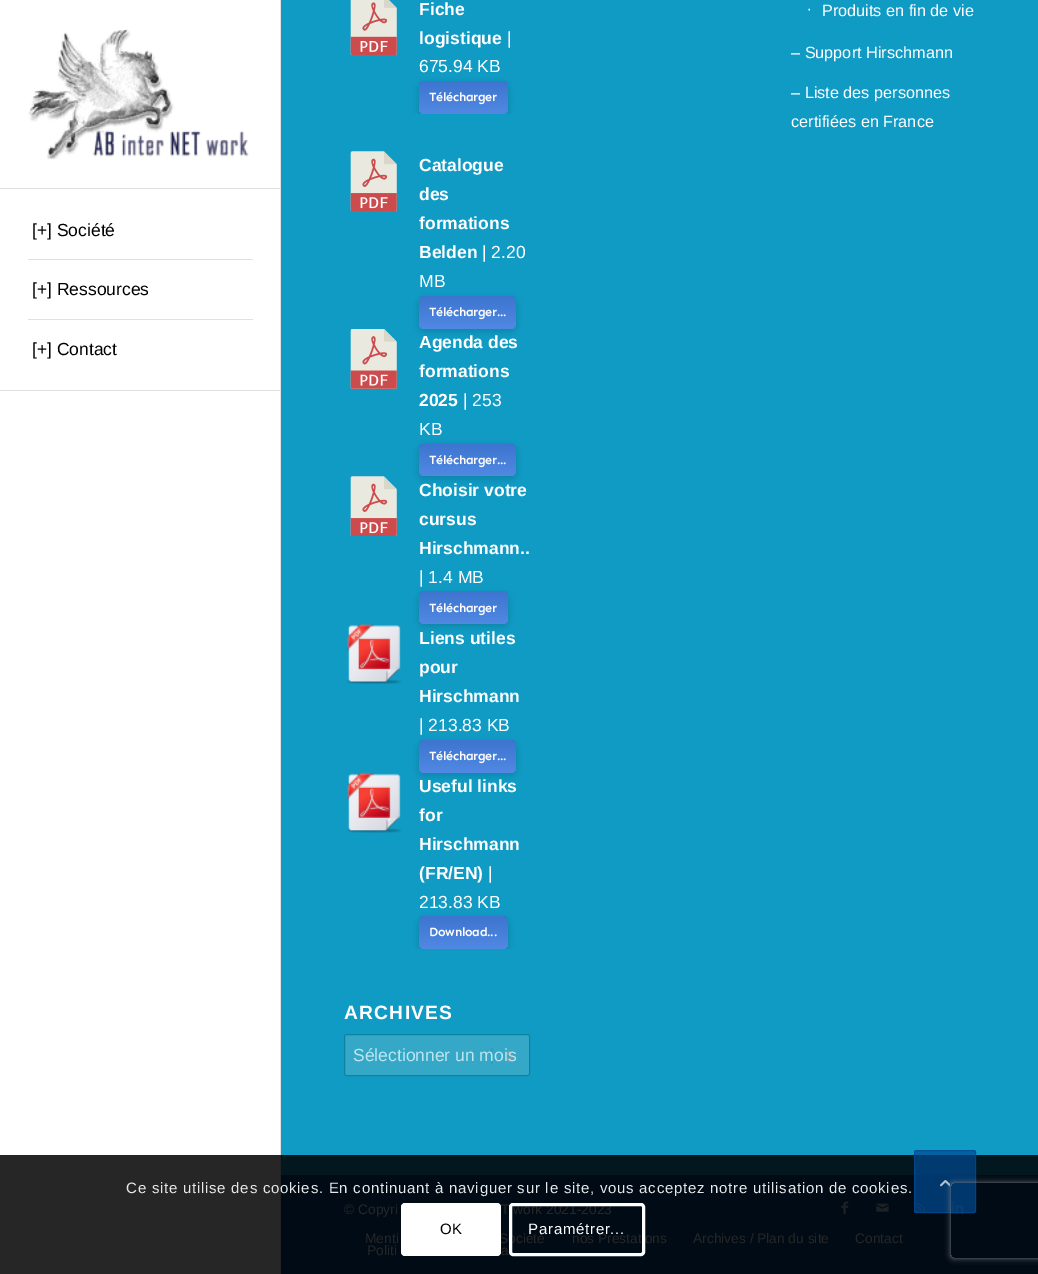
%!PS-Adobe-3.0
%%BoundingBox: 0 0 1038 1274
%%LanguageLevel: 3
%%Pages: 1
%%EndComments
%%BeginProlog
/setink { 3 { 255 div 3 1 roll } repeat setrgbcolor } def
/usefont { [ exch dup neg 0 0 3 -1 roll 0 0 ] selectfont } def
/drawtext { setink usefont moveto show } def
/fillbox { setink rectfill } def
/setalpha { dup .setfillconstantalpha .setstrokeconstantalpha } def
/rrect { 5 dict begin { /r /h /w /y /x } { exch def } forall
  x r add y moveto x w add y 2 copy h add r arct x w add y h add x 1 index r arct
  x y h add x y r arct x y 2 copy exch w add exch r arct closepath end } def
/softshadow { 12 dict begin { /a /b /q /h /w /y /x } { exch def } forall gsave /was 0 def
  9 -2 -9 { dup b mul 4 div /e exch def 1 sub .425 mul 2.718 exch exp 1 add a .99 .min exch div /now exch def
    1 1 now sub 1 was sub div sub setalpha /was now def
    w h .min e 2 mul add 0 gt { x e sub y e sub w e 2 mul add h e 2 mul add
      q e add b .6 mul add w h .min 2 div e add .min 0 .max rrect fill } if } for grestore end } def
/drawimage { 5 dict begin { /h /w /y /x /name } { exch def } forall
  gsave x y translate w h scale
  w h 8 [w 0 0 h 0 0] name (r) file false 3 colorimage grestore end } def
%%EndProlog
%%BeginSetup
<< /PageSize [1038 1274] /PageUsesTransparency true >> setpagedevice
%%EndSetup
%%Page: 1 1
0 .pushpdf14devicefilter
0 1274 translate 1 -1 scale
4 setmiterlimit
0 0 1038 1274 255 255 255 fillbox
0 1155 280 119 38 38 38 fillbox
0 390 280 1 225 225 225 fillbox
0 188 280 1 225 225 225 fillbox
(assets/img1.rgb) 28 29 221 131 drawimage
28 259 225 1 225 225 225 fillbox
([+] Société) 32 236 /LiberationSans-Regular 17.5 0 0 0 drawtext
28 319 225 1 225 225 225 fillbox
([+] Ressources) 32 295 /LiberationSans-Regular 17.5 0 0 0 drawtext
([+] Contact) 32 355 /LiberationSans-Regular 17.5 0 0 0 drawtext
280 0 1 1155 225 225 225 fillbox
280 1155 1 119 34 34 34 fillbox
281 0 757 1155 16 155 197 fillbox
281 1155 757 20 2 23 30 fillbox
(assets/img2.rgb) 350 0 47 55 drawimage
(Fiche) 419 15 /LiberationSans-Bold 17.5 255 255 255 drawtext
(logistique) 419 44 /LiberationSans-Bold 17.5 255 255 255 drawtext
(|) 507 44 /LiberationSans-Regular 17.5 255 255 255 drawtext
(675.94 KB) 419 72 /LiberationSans-Regular 17.5 255 255 255 drawtext
gsave
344 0 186 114 rectclip
0 0 0 setink
419 84 89 32 5 4 0.15 softshadow
grestore
65 126 224 setink
419 81 89 33 5 rrect fill
0.08 setalpha
gsave 419 81 89 33 5 rrect clip newpath
<< /ShadingType 2 /ColorSpace /DeviceRGB /Coords [463 81 463 114] /Extend [true true] /Function << /FunctionType 2 /Domain [0 1] /C0 [0 0 0] /C1 [1 1 1] /N 1 >> >> shfill grestore
/Sen-SemiBold 12.5 usefont
1 setalpha
255 255 255 setink
429 101 moveto -0.25 0 (Télécharger) ashow
(assets/img3.rgb) 350 151 47 60 drawimage
(Catalogue) 419 171 /LiberationSans-Bold 17.5 255 255 255 drawtext
(des) 419 200 /LiberationSans-Bold 17.5 255 255 255 drawtext
(formations) 419 229 /LiberationSans-Bold 17.5 255 255 255 drawtext
(Belden) 419 258 /LiberationSans-Bold 17.5 255 255 255 drawtext
(| 2.20) 482 258 /LiberationSans-Regular 17.5 255 255 255 drawtext
(MB) 419 287 /LiberationSans-Regular 17.5 255 255 255 drawtext
0 0 0 setink
419 299 97 32 5 4 0.15 softshadow
65 126 224 setink
419 296 97 33 5 rrect fill
0.08 setalpha
gsave 419 296 97 33 5 rrect clip newpath
<< /ShadingType 2 /ColorSpace /DeviceRGB /Coords [468 296 468 329] /Extend [true true] /Function << /FunctionType 2 /Domain [0 1] /C0 [0 0 0] /C1 [1 1 1] /N 1 >> >> shfill grestore
/Sen-SemiBold 12.5 usefont
1 setalpha
255 255 255 setink
429 316 moveto -0.25 0 (Télécharger...) ashow
(assets/img4.rgb) 350 329 47 60 drawimage
(Agenda des) 419 348 /LiberationSans-Bold 17.5 255 255 255 drawtext
(formations) 419 377 /LiberationSans-Bold 17.5 255 255 255 drawtext
(2025) 419 406 /LiberationSans-Bold 17.5 255 255 255 drawtext
(| 253) 463 406 /LiberationSans-Regular 17.5 255 255 255 drawtext
(KB) 419 435 /LiberationSans-Regular 17.5 255 255 255 drawtext
0 0 0 setink
419 446 97 33 5 4 0.15 softshadow
65 126 224 setink
419 444 97 32 5 rrect fill
0.08 setalpha
gsave 419 444 97 32 5 rrect clip newpath
<< /ShadingType 2 /ColorSpace /DeviceRGB /Coords [468 444 468 476] /Extend [true true] /Function << /FunctionType 2 /Domain [0 1] /C0 [0 0 0] /C1 [1 1 1] /N 1 >> >> shfill grestore
/Sen-SemiBold 12.5 usefont
1 setalpha
255 255 255 setink
429 464 moveto -0.25 0 (Télécharger...) ashow
(assets/img3.rgb) 350 476 47 60 drawimage
(Choisir votre) 419 496 /LiberationSans-Bold 17.5 255 255 255 drawtext
(cursus) 419 525 /LiberationSans-Bold 17.5 255 255 255 drawtext
(Hirschmann..) 419 554 /LiberationSans-Bold 17.5 255 255 255 drawtext
(| 1.4 MB) 419 583 /LiberationSans-Regular 17.5 255 255 255 drawtext
0 0 0 setink
419 594 89 32 5 4 0.15 softshadow
65 126 224 setink
419 591 89 33 5 rrect fill
0.08 setalpha
gsave 419 591 89 33 5 rrect clip newpath
<< /ShadingType 2 /ColorSpace /DeviceRGB /Coords [463 591 463 624] /Extend [true true] /Function << /FunctionType 2 /Domain [0 1] /C0 [0 0 0] /C1 [1 1 1] /N 1 >> >> shfill grestore
/Sen-SemiBold 12.5 usefont
1 setalpha
255 255 255 setink
429 612 moveto -0.25 0 (Télécharger) ashow
(assets/img5.rgb) 347 624 55 60 drawimage
(Liens utiles) 419 644 /LiberationSans-Bold 17.5 255 255 255 drawtext
(pour) 419 673 /LiberationSans-Bold 17.5 255 255 255 drawtext
(Hirschmann) 419 702 /LiberationSans-Bold 17.5 255 255 255 drawtext
(| 213.83 KB) 419 731 /LiberationSans-Regular 17.5 255 255 255 drawtext
0 0 0 setink
419 743 97 32 5 4 0.15 softshadow
65 126 224 setink
419 740 97 33 5 rrect fill
0.08 setalpha
gsave 419 740 97 33 5 rrect clip newpath
<< /ShadingType 2 /ColorSpace /DeviceRGB /Coords [468 740 468 773] /Extend [true true] /Function << /FunctionType 2 /Domain [0 1] /C0 [0 0 0] /C1 [1 1 1] /N 1 >> >> shfill grestore
/Sen-SemiBold 12.5 usefont
1 setalpha
255 255 255 setink
429 760 moveto -0.25 0 (Télécharger...) ashow
(assets/img6.rgb) 346 772 56 61 drawimage
(Useful links) 419 792 /LiberationSans-Bold 17.5 255 255 255 drawtext
(for) 419 821 /LiberationSans-Bold 17.5 255 255 255 drawtext
(Hirschmann) 419 850 /LiberationSans-Bold 17.5 255 255 255 drawtext
(\(FR/EN\)) 419 879 /LiberationSans-Bold 17.5 255 255 255 drawtext
(|) 488 879 /LiberationSans-Regular 17.5 255 255 255 drawtext
(213.83 KB) 419 908 /LiberationSans-Regular 17.5 255 255 255 drawtext
gsave
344 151 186 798 rectclip
0 0 0 setink
419 919 89 32 5 4 0.15 softshadow
grestore
65 126 224 setink
419 916 89 33 5 rrect fill
0.08 setalpha
gsave 419 916 89 33 5 rrect clip newpath
<< /ShadingType 2 /ColorSpace /DeviceRGB /Coords [463 916 463 949] /Extend [true true] /Function << /FunctionType 2 /Domain [0 1] /C0 [0 0 0] /C1 [1 1 1] /N 1 >> >> shfill grestore
/Sen-SemiBold 12.5 usefont
1 setalpha
255 255 255 setink
429 936 moveto -0.25 0 (Download...) ashow
/LiberationSans-Bold 19.25 usefont
344 1019 moveto 1.25 0 (ARCHIVES) ashow
54 168 199 setink
344 1034 186 42 2.5 rrect fill
(assets/img7.rgb) 491 1048 22 16 drawimage
15 129 161 setink
344.5 1034.5 185 41 2 rrect stroke
(Sélectionner un mois) 353 1061 /LiberationSans-Regular 17.5 189 229 240 drawtext
(∙) 807 14 /LiberationSans-Regular 16.25 255 255 255 drawtext
(Produits en fin de vie) 822 16 /LiberationSans-Regular 16.25 255 255 255 drawtext
(– Support Hirschmann) 791 58 /LiberationSans-Regular 16.25 255 255 255 drawtext
(– Liste des personnes) 791 98 /LiberationSans-Regular 16.25 255 255 255 drawtext
(certifiées en France) 791 127 /LiberationSans-Regular 16.25 255 255 255 drawtext
281 1175 757 99 0 11 22 fillbox
(© Copyri) 344 1214 /LiberationSans-Regular 13.75 38 38 38 drawtext
(T work 2021-2023) 501 1214 /LiberationSans-Regular 13.75 38 38 38 drawtext
(assets/img8.rgb) 841 1201 8 13 drawimage
(assets/img9.rgb) 876 1203 13 9 drawimage
(assets/img10.rgb) 915 1202 11 11 drawimage
(assets/img11.rgb) 951 1201 13 13 drawimage
(Menti) 365 1243 /LiberationSans-Regular 13.75 38 38 38 drawtext
(Société) 499 1243 /LiberationSans-Regular 13.75 38 38 38 drawtext
(nos Prestations) 572 1243 /LiberationSans-Regular 13.75 38 38 38 drawtext
(Archives / Plan du site) 693 1243 /LiberationSans-Regular 13.75 38 38 38 drawtext
(Contact) 855 1243 /LiberationSans-Regular 13.75 38 38 38 drawtext
(Politi) 367 1255 /LiberationSans-Regular 13.75 38 38 38 drawtext
(a) 501 1255 /LiberationSans-Regular 13.75 38 38 38 drawtext
0.7 setalpha
0 73 145 setink
914 1150 62 63 2.5 rrect fill
914.5 1150.5 61 62 2 rrect stroke
1 setalpha
(assets/img12.rgb) 940 1180 10 7 drawimage
/LiberationSans-Regular 15 usefont
230 231 232 setink
126 1193 moveto 0.75 0 (Ce site utilise des cookies. En continuant à naviguer sur le site, vous acceptez notre utilisation de cookies.) ashow
255 255 255 setink
401 1203 100 53 4 rrect fill
0 0 0 setink
440 1234 moveto 0.75 0 (OK) ashow
255 255 255 setink
3 setlinewidth
510.5 1204.5 133 50 2.5 rrect stroke
528 1234 moveto 0.75 0 (Paramétrer...) ashow
gsave
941 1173 moveto 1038 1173 lineto 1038 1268 lineto 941 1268 lineto closepath 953.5 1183 moveto 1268.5 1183 lineto 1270 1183 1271 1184 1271 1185.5 curveto 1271 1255.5 lineto 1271 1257 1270 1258 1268.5 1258 curveto 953.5 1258 lineto 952 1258 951 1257 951 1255.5 curveto 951 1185.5 lineto 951 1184 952 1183 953.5 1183 curveto closepath eoclip newpath
128 128 128 setink
951 1183 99 75 2.5 3 1 softshadow
grestore
.poppdf14devicefilter showpage
%%EOF
